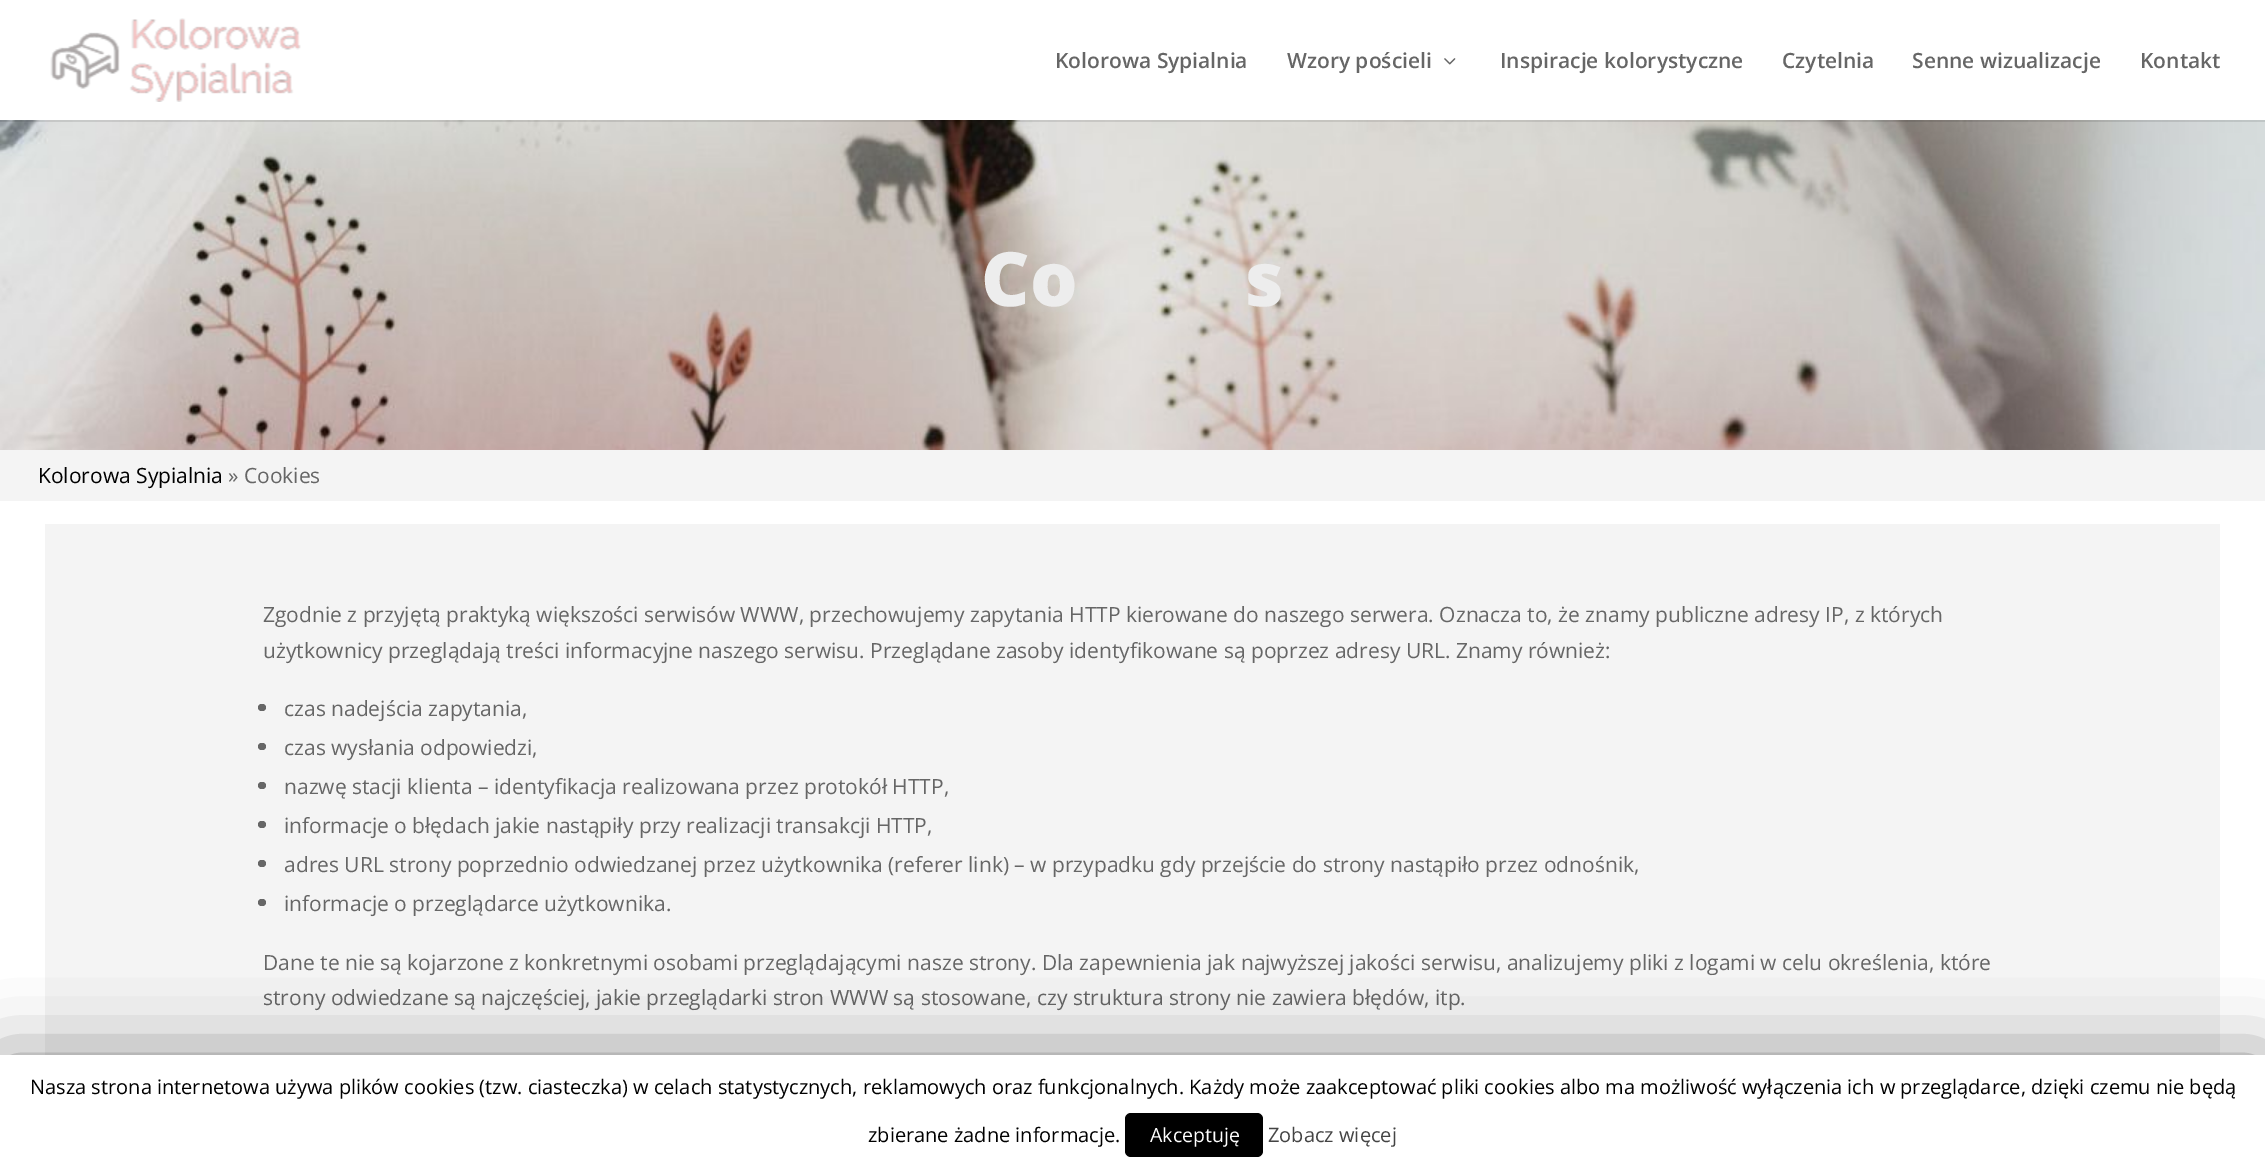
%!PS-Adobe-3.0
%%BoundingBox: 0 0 2265 1171
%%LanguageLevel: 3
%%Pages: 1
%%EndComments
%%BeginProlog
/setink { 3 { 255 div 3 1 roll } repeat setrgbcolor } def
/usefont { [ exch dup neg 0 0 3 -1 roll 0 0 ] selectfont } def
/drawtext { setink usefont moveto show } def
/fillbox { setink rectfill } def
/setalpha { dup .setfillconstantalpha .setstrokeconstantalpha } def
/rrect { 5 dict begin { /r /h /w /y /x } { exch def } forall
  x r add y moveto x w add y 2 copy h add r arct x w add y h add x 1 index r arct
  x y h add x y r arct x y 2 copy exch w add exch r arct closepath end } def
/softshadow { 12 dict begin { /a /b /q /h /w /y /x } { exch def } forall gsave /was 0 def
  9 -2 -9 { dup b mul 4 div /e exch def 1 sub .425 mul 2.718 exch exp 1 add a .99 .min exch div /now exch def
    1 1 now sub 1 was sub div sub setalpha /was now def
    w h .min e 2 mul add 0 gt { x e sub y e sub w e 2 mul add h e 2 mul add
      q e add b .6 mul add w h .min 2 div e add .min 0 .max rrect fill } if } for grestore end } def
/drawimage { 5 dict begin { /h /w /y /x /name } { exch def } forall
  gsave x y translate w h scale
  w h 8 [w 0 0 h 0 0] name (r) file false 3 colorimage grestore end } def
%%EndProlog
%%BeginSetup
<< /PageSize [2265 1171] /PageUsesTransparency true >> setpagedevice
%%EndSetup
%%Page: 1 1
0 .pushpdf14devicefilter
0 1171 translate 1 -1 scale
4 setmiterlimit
0 0 2265 1171 255 255 255 fillbox
(assets/img3.rgb) 0 120 2265 330 drawimage
0.1 setalpha
0 120 2265 2 0 0 0 fillbox
1 setalpha
(assets/img1.rgb) 50 18 251 84 drawimage
(Kolorowa Sypialnia) 1055 68 /OpenSans-SemiBold 21 102 102 102 drawtext
(Wzory pościeli) 1287 68 /OpenSans-SemiBold 21 102 102 102 drawtext
(assets/img2.rgb) 1444 58 12 7 drawimage
(Inspiracje kolorystyczne) 1500 68 /OpenSans-SemiBold 21 102 102 102 drawtext
(Czytelnia) 1782 68 /OpenSans-SemiBold 21 102 102 102 drawtext
(Senne wizualizacje) 1912 68 /OpenSans-SemiBold 21 102 102 102 drawtext
(Kontakt) 2140 68 /OpenSans-SemiBold 21 102 102 102 drawtext
(Co) 981 306 /OpenSans-ExtraBold 75 237 237 237 drawtext
(s) 1245 306 /OpenSans-ExtraBold 75 237 237 237 drawtext
0 450 2265 51 244 244 244 fillbox
(Kolorowa Sypialnia) 38 483 /OpenSans-Regular 21 0 0 0 drawtext
(» Cookies) 228 483 /OpenSans-Regular 21 102 102 102 drawtext
45 524 2175 531 244 244 244 fillbox
(Zgodnie z przyjętą praktyką większości serwisów WWW, przechowujemy zapytania HTTP kierowane do naszego serwera. Oznacza to, że znamy publiczne adresy IP, z których) 263 622 /OpenSans-Regular 21 102 102 102 drawtext
(użytkownicy przeglądają treści informacyjne naszego serwisu. Przeglądane zasoby identyfikowane są poprzez adresy URL. Znamy również:) 263 658 /OpenSans-Regular 21 102 102 102 drawtext
258 704 8 7 3.5 rrect fill
(czas nadejścia zapytania,) 284 716 /OpenSans-Regular 21 102 102 102 drawtext
258 743 8 7 3.5 rrect fill
(czas wysłania odpowiedzi,) 284 755 /OpenSans-Regular 21 102 102 102 drawtext
258 782 8 7 3.5 rrect fill
(nazwę stacji klienta – identyfikacja realizowana przez protokół HTTP,) 284 794 /OpenSans-Regular 21 102 102 102 drawtext
258 821 8 7 3.5 rrect fill
(informacje o błędach jakie nastąpiły przy realizacji transakcji HTTP,) 284 833 /OpenSans-Regular 21 102 102 102 drawtext
258 860 8 7 3.5 rrect fill
(adres URL strony poprzednio odwiedzanej przez użytkownika \(referer link\) – w przypadku gdy przejście do strony nastąpiło przez odnośnik,) 284 872 /OpenSans-Regular 21 102 102 102 drawtext
258 899 8 7 3.5 rrect fill
(informacje o przeglądarce użytkownika.) 284 911 /OpenSans-Regular 21 102 102 102 drawtext
(Dane te nie są kojarzone z konkretnymi osobami przeglądającymi nasze strony. Dla zapewnienia jak najwyższej jakości serwisu, analizujemy pliki z logami w celu określenia, które) 263 970 /OpenSans-Regular 21 102 102 102 drawtext
(strony odwiedzane są najczęściej, jakie przeglądarki stron WWW są stosowane, czy struktura strony nie zawiera błędów, itp.) 263 1005 /OpenSans-Regular 21 102 102 102 drawtext
0 0 0 setink
0 1062 2265 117 0 37.5 0.5 softshadow
0 1055 2265 116 255 255 255 fillbox
(Nasza strona internetowa używa plików cookies \(tzw. ciasteczka\) w celach statystycznych, reklamowych oraz funkcjonalnych. Każdy może zaakceptować pliki cookies albo ma możliwość wyłączenia ich w przeglądarce, dzięki czemu nie będą) 30 1094 /OpenSans-Regular 20 0 0 0 drawtext
(zbierane żadne informacje.) 868 1142 /OpenSans-Regular 20 0 0 0 drawtext
1125 1113 138 44 6 rrect fill
(Akceptuję) 1150 1142 /OpenSans-Regular 19.5 255 255 255 drawtext
(Zobacz więcej) 1268 1142 /OpenSans-Regular 20 68 68 68 drawtext
.poppdf14devicefilter showpage
%%EOF
